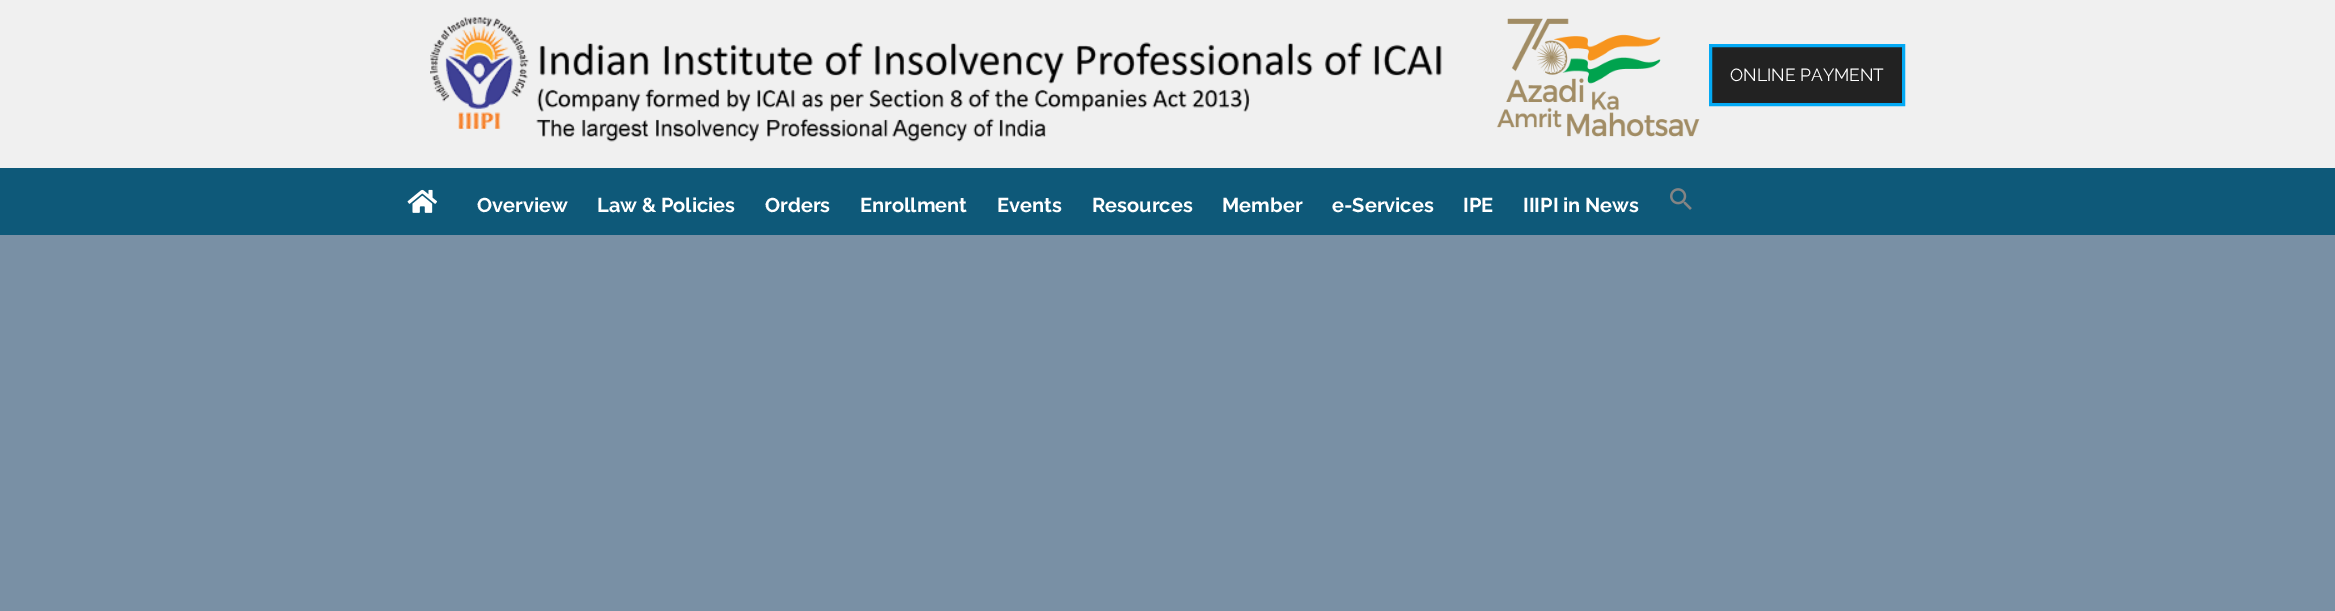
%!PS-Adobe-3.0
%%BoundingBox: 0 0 2335 611
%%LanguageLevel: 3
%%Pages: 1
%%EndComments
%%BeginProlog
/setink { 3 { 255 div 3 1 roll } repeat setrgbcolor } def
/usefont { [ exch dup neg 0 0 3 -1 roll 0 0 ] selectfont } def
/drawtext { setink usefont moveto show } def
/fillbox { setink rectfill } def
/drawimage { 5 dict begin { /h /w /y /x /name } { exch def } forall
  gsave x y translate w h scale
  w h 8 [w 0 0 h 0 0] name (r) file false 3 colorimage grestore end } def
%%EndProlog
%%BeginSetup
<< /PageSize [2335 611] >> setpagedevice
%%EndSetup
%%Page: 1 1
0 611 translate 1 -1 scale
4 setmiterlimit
0 0 2335 611 240 240 240 fillbox
(assets/img1.rgb) 430 17 1012 125 drawimage
(assets/img2.rgb) 1496 18 204 119 drawimage
34 34 34 setink
1710.5 45.5 moveto 1903.5 45.5 lineto 1903.5 104.5 lineto 1710.5 104.5 lineto closepath gsave fill grestore
3 169 244 setink
3 setlinewidth
stroke
(ONLINE PAYMENT) 1730 81 /Raleway-Regular 17.5 255 255 255 drawtext
0 168 2335 67 14 89 121 fillbox
(assets/img3.rgb) 407 189 30 24 drawimage
(Overview) 477 212 /Raleway-Bold 20 255 255 255 drawtext
(Law & Policies) 597 212 /Raleway-Bold 20 255 255 255 drawtext
(Orders) 765 212 /Raleway-Bold 20 255 255 255 drawtext
(Enrollment) 860 212 /Raleway-Bold 20 255 255 255 drawtext
(Events) 997 212 /Raleway-Bold 20 255 255 255 drawtext
(Resources) 1092 212 /Raleway-Bold 20 255 255 255 drawtext
(Member) 1222 212 /Raleway-Bold 20 255 255 255 drawtext
(e-Services) 1332 212 /Raleway-Bold 20 255 255 255 drawtext
(IPE) 1463 212 /Raleway-Bold 20 255 255 255 drawtext
(IIIPI in News) 1523 212 /Raleway-Bold 20 255 255 255 drawtext
(assets/img4.rgb) 1670 188 22 22 drawimage
0 235 2335 376 121 144 165 fillbox
showpage
%%EOF
